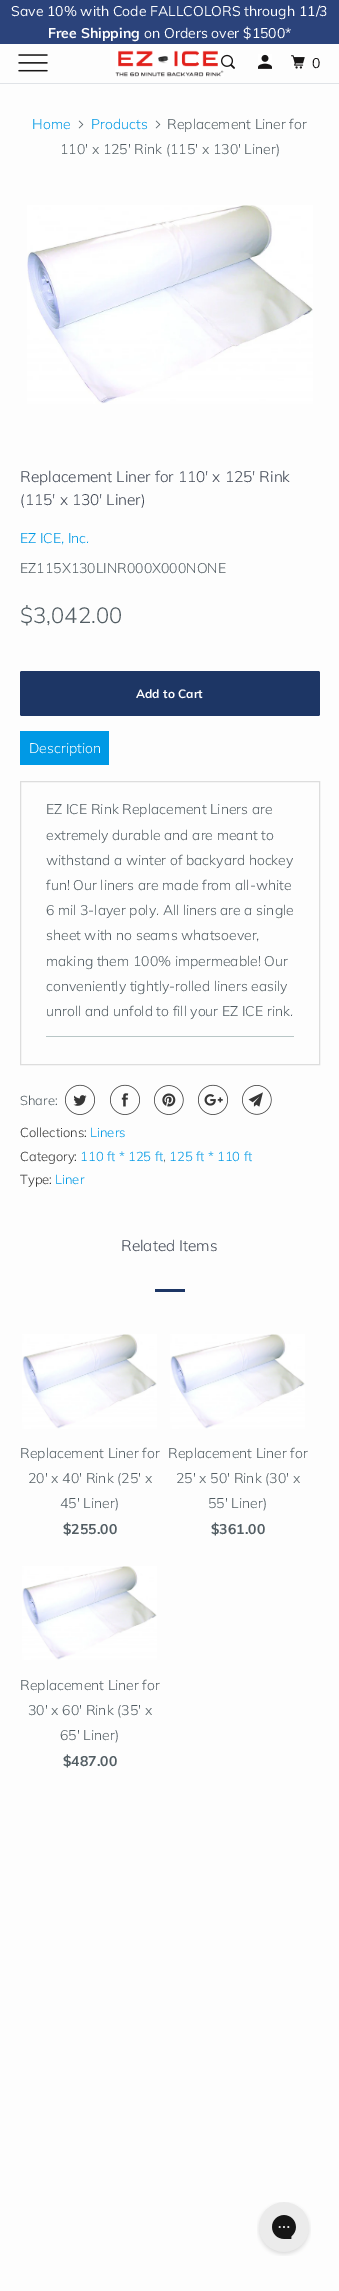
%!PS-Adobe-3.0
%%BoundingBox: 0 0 339 2291
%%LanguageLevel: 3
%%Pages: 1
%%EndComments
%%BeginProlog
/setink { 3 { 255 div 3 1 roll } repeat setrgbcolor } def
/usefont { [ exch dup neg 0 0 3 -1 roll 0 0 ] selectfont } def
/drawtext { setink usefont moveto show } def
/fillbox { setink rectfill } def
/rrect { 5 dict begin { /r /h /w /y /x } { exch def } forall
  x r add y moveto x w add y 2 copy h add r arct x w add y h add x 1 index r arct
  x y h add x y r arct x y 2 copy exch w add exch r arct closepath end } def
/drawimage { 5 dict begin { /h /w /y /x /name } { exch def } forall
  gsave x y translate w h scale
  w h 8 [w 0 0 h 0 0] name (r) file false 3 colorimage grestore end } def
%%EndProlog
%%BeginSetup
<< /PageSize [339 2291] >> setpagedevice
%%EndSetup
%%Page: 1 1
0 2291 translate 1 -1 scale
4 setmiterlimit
0 0 339 2291 253 253 253 fillbox
0 0 339 44 43 67 123 fillbox
(Save 10% with Code FALLCOLORS through 11/3) 11 16 /Muli-Regular 14 255 255 255 drawtext
(Free Shipping) 48 38 /Muli-Bold 14 255 255 255 drawtext
(on Orders over $1500*) 144 38 /Muli-Regular 14 255 255 255 drawtext
(assets/img1.rgb) 18 54 30 18 drawimage
0 83 339 1 224 227 231 fillbox
(assets/img2.rgb) 115 50 109 27 drawimage
(assets/img3.rgb) 221 54 14 15 drawimage
(assets/img4.rgb) 258 54 14 15 drawimage
(assets/img5.rgb) 291 55 14 14 drawimage
(0) 312 68 /Muli-Regular 14 23 21 21 drawtext
(Home) 32 129 /Muli-Light 14 0 153 229 drawtext
(assets/img6.rgb) 78 120 6 9 drawimage
(Products) 91 129 /Muli-Light 14 0 153 229 drawtext
(assets/img6.rgb) 155 120 6 9 drawimage
(Replacement Liner for) 167 129 /Muli-Light 14 82 93 99 drawtext
(110' x 125' Rink \(115' x 130' Liner\)) 60 154 /Muli-Light 14 82 93 99 drawtext
(assets/img7.rgb) 27 205 286 199 drawimage
(Replacement Liner for 110' x 125' Rink) 20 482 /Muli-Light 15.4 62 69 82 drawtext
(\(115' x 130' Liner\)) 20 505 /Muli-Light 15.4 62 69 82 drawtext
(EZ ICE, Inc.) 20 543 /Muli-Light 14 0 153 229 drawtext
(EZ115X130LINR000X000NONE) 20 573 /Muli-Light 14 82 93 99 drawtext
($3,042.00) 20 623 /Muli-Light 22 82 93 99 drawtext
29 54 101 setink
20 671 300 45 2 rrect fill
(Add to Cart) 136 698 /Muli-Bold 12 255 255 255 drawtext
20 731 89 34 0 153 229 fillbox
(Description) 29 753 /Muli-Light 14 255 255 255 drawtext
221 221 221 setink
20.5 781.5 299 283 rectstroke
(EZ ICE Rink Replacement Liners are) 46 814 /Muli-Light 14 82 93 99 drawtext
(extremely durable and are meant to) 46 840 /Muli-Light 14 82 93 99 drawtext
(withstand a winter of backyard hockey) 46 865 /Muli-Light 14 82 93 99 drawtext
(fun! Our liners are made from all-white) 46 890 /Muli-Light 14 82 93 99 drawtext
(6 mil 3-layer poly. All liners are a single) 46 915 /Muli-Light 14 82 93 99 drawtext
(sheet with no seams whatsoever,) 46 940 /Muli-Light 14 82 93 99 drawtext
(making them 100% impermeable! Our) 46 966 /Muli-Light 14 82 93 99 drawtext
(conveniently tightly-rolled liners easily) 46 991 /Muli-Light 14 82 93 99 drawtext
(unroll and unfold to fill your EZ ICE rink.) 46 1016 /Muli-Light 14 82 93 99 drawtext
46 1036 248 1 184 198 198 fillbox
(Share:) 20 1105 /Muli-Light 13 82 93 99 drawtext
(assets/img8.rgb) 65 1084 30 31 drawimage
(assets/img9.rgb) 110 1084 30 31 drawimage
(assets/img10.rgb) 154 1085 30 30 drawimage
(assets/img11.rgb) 198 1084 30 31 drawimage
(assets/img12.rgb) 242 1085 30 30 drawimage
(Collections:) 20 1137 /Muli-Light 13 54 54 54 drawtext
(Liners) 90 1137 /Muli-Light 13 0 153 229 drawtext
(Category:) 20 1161 /Muli-Light 13 54 54 54 drawtext
(110 ft * 125 ft) 80 1161 /Muli-Light 13 0 153 229 drawtext
(,) 163 1161 /Muli-Light 13 82 93 99 drawtext
(125 ft * 110 ft) 169 1161 /Muli-Light 13 0 153 229 drawtext
(Type:) 20 1184 /Muli-Light 13 54 54 54 drawtext
(Liner) 55 1184 /Muli-Light 13 0 153 229 drawtext
(Related Items) 121 1251 /Muli-Light 15.4 62 69 82 drawtext
155 1289 30 3 29 54 101 fillbox
(assets/img13.rgb) 22 1334 135 95 drawimage
(Replacement Liner for) 20 1458 /Muli-Light 14 82 93 99 drawtext
(20' x 40' Rink \(25' x) 28 1483 /Muli-Light 14 82 93 99 drawtext
(45' Liner\)) 60 1508 /Muli-Light 14 82 93 99 drawtext
($255.00) 63 1534 /Muli-Bold 14 82 93 99 drawtext
(assets/img13.rgb) 170 1334 135 95 drawimage
(Replacement Liner for) 168 1458 /Muli-Light 14 82 93 99 drawtext
(25' x 50' Rink \(30' x) 176 1483 /Muli-Light 14 82 93 99 drawtext
(55' Liner\)) 208 1508 /Muli-Light 14 82 93 99 drawtext
($361.00) 211 1534 /Muli-Bold 14 82 93 99 drawtext
(assets/img14.rgb) 22 1566 135 94 drawimage
(Replacement Liner for) 20 1690 /Muli-Light 14 82 93 99 drawtext
(30' x 60' Rink \(35' x) 28 1715 /Muli-Light 14 82 93 99 drawtext
(65' Liner\)) 60 1740 /Muli-Light 14 82 93 99 drawtext
($487.00) 63 1766 /Muli-Bold 14 82 93 99 drawtext
(assets/img15.rgb) 257 2202 54 54 drawimage
showpage
%%EOF
